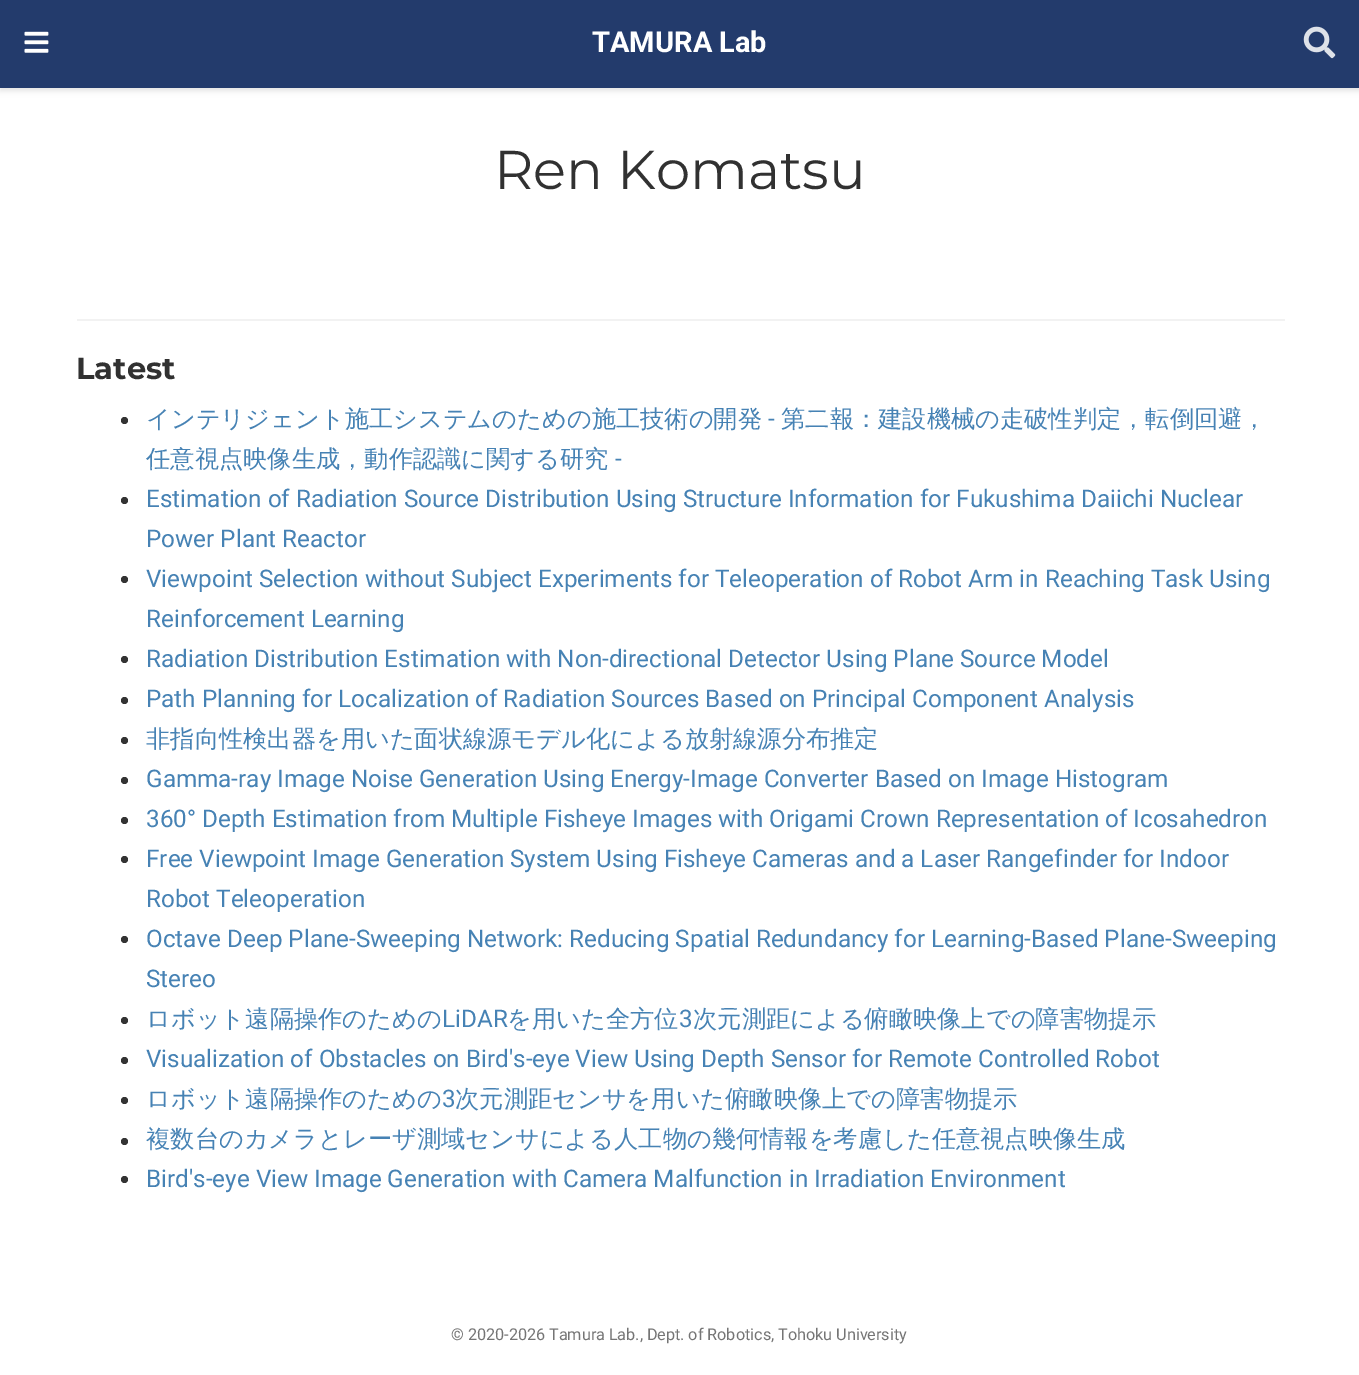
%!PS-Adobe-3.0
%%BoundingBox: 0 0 1359 1375
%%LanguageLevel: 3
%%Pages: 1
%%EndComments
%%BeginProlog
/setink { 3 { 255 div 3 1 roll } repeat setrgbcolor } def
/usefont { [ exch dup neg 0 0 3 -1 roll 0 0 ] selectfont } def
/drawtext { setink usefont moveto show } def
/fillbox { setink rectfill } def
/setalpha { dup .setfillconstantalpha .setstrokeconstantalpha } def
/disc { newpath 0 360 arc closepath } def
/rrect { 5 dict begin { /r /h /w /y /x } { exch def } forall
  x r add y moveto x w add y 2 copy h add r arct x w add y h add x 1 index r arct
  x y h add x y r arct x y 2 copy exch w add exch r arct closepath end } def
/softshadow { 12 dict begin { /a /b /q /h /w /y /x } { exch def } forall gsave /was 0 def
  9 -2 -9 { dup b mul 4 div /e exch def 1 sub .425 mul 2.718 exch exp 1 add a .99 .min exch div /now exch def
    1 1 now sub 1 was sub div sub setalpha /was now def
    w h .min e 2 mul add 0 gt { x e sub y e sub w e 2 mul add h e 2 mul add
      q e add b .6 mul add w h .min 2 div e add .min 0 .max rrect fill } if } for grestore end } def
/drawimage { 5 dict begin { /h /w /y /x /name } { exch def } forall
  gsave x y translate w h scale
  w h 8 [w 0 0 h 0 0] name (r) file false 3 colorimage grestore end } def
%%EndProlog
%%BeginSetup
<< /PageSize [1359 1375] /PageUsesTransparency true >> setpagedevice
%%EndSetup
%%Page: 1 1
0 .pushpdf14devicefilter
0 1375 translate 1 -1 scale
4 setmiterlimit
0 0 1359 1375 255 255 255 fillbox
0 0 0 setink
0 4 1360 87 0 3 0.11 softshadow
0 0 1359 88 35 59 108 fillbox
(assets/img1.rgb) 24 31 25 22 drawimage
(TAMURA Lab) 592 52 /Roboto-Bold 29 255 255 255 drawtext
(assets/img2.rgb) 1303 26 33 33 drawimage
(Ren Komatsu) 494 189 /Montserrat-Regular 54.5 49 49 49 drawtext
77 319 1208 2 242 242 242 fillbox
(Latest) 76 379 /Montserrat-Bold 30.5 49 49 49 drawtext
51 51 51 setink
124.5 420.5 3.5 disc fill
(インテリジェント施工システムのための施工技術の開発) 146 427 /WenQuanYiZenHei-Medium 24.25 70 130 180 drawtext
(-) 768 427 /Roboto-Regular 24.25 70 130 180 drawtext
(第二報：建設機械の走破性判定，転倒回避，) 781 427 /WenQuanYiZenHei-Medium 24.25 70 130 180 drawtext
(任意視点映像生成，動作認識に関する研究) 146 467 /WenQuanYiZenHei-Medium 24.25 70 130 180 drawtext
(-) 615 467 /Roboto-Regular 24.25 70 130 180 drawtext
51 51 51 setink
124.5 500.5 3.5 disc fill
(Estimation of Radiation Source Distribution Using Structure Information for Fukushima Daiichi Nuclear) 146 507 /Roboto-Regular 24.25 70 130 180 drawtext
(Power Plant Reactor) 146 547 /Roboto-Regular 24.25 70 130 180 drawtext
51 51 51 setink
124.5 579.5 3.5 disc fill
(Viewpoint Selection without Subject Experiments for Teleoperation of Robot Arm in Reaching Task Using) 146 587 /Roboto-Regular 24.25 70 130 180 drawtext
(Reinforcement Learning) 146 627 /Roboto-Regular 24.25 70 130 180 drawtext
51 51 51 setink
124.5 659.5 3.5 disc fill
(Radiation Distribution Estimation with Non-directional Detector Using Plane Source Model) 146 667 /Roboto-Regular 24.25 70 130 180 drawtext
51 51 51 setink
124.5 700.5 3.5 disc fill
(Path Planning for Localization of Radiation Sources Based on Principal Component Analysis) 146 707 /Roboto-Regular 24.25 70 130 180 drawtext
51 51 51 setink
124.5 740.5 3.5 disc fill
(非指向性検出器を用いた面状線源モデル化による放射線源分布推定) 146 747 /WenQuanYiZenHei-Medium 24.25 70 130 180 drawtext
51 51 51 setink
124.5 780.5 3.5 disc fill
(Gamma-ray Image Noise Generation Using Energy-Image Converter Based on Image Histogram) 146 787 /Roboto-Regular 24.25 70 130 180 drawtext
51 51 51 setink
124.5 820.5 3.5 disc fill
(360° Depth Estimation from Multiple Fisheye Images with Origami Crown Representation of Icosahedron) 146 827 /Roboto-Regular 24.25 70 130 180 drawtext
51 51 51 setink
124.5 859.5 3.5 disc fill
(Free Viewpoint Image Generation System Using Fisheye Cameras and a Laser Rangefinder for Indoor) 146 867 /Roboto-Regular 24.25 70 130 180 drawtext
(Robot Teleoperation) 146 907 /Roboto-Regular 24.25 70 130 180 drawtext
51 51 51 setink
124.5 939.5 3.5 disc fill
(Octave Deep Plane-Sweeping Network: Reducing Spatial Redundancy for Learning-Based Plane-Sweeping) 146 947 /Roboto-Regular 24.25 70 130 180 drawtext
(Stereo) 146 987 /Roboto-Regular 24.25 70 130 180 drawtext
51 51 51 setink
124.5 1020.5 3.5 disc fill
(ロボット遠隔操作のための) 146 1027 /WenQuanYiZenHei-Medium 24.25 70 130 180 drawtext
(LiDAR) 442 1027 /Roboto-Regular 24.25 70 130 180 drawtext
(を用いた全方位) 507 1027 /WenQuanYiZenHei-Medium 24.25 70 130 180 drawtext
(3) 679 1027 /Roboto-Regular 24.25 70 130 180 drawtext
(次元測距による俯瞰映像上での障害物提示) 693 1027 /WenQuanYiZenHei-Medium 24.25 70 130 180 drawtext
51 51 51 setink
124.5 1060.5 3.5 disc fill
(Visualization of Obstacles on Bird's-eye View Using Depth Sensor for Remote Controlled Robot) 146 1067 /Roboto-Regular 24.25 70 130 180 drawtext
51 51 51 setink
124.5 1100.5 3.5 disc fill
(ロボット遠隔操作のための) 146 1107 /WenQuanYiZenHei-Medium 24.25 70 130 180 drawtext
(3) 442 1107 /Roboto-Regular 24.25 70 130 180 drawtext
(次元測距センサを用いた俯瞰映像上での障害物提示) 455 1107 /WenQuanYiZenHei-Medium 24.25 70 130 180 drawtext
51 51 51 setink
124.5 1141.5 3.5 disc fill
(複数台のカメラとレーザ測域センサによる人工物の幾何情報を考慮した任意視点映像生成) 146 1147 /WenQuanYiZenHei-Medium 24.25 70 130 180 drawtext
51 51 51 setink
124.5 1179.5 3.5 disc fill
(Bird's-eye View Image Generation with Camera Malfunction in Irradiation Environment) 146 1187 /Roboto-Regular 24.25 70 130 180 drawtext
/Roboto-Regular 16.25 usefont
117 117 117 setink
451 1340 moveto -0.25 0 32 (© 2020-2026 Tamura Lab., Dept. of Robotics, Tohoku University) widthshow
.poppdf14devicefilter showpage
%%EOF
